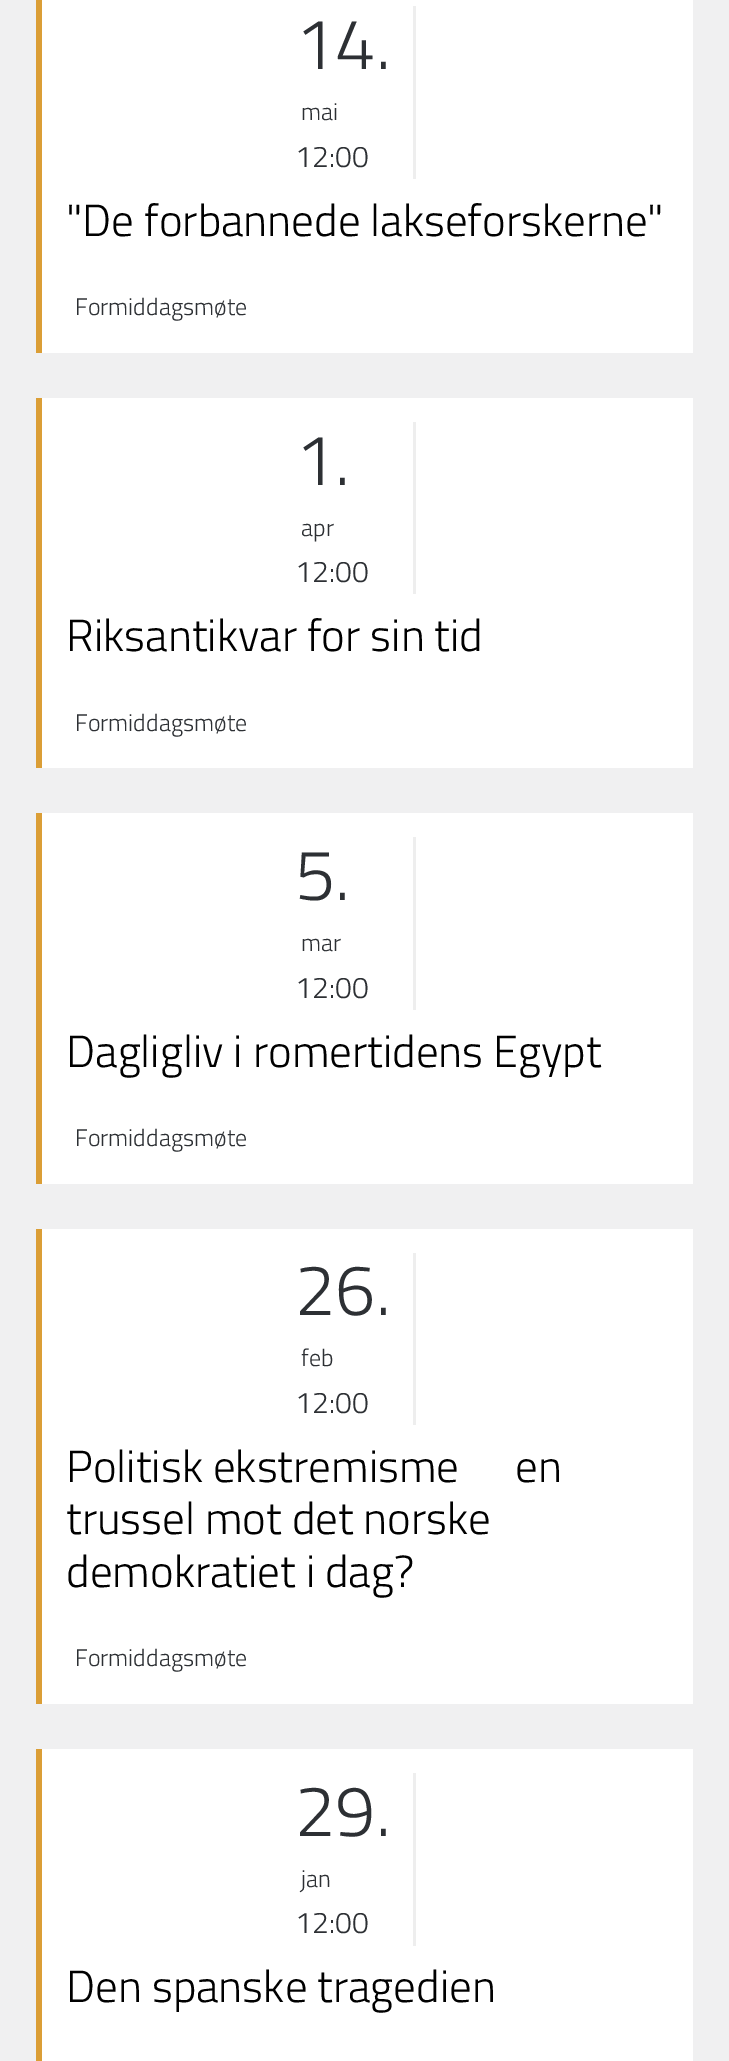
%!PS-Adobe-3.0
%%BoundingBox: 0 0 729 2061
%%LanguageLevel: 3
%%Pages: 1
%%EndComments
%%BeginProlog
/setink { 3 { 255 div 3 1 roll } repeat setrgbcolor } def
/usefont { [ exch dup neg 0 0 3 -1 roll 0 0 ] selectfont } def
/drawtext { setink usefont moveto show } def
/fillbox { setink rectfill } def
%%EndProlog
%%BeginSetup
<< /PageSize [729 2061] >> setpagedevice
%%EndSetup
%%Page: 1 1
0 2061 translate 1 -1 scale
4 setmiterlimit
0 0 729 2061 240 240 241 fillbox
42 0 651 353 255 255 255 fillbox
36 0 6 353 219 158 54 fillbox
413 6 3 173 238 238 238 fillbox
(14.) 295 69 /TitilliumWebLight-Light 72 45 48 52 drawtext
(mai) 301 120 /TitilliumWebLight-Light 24 45 48 52 drawtext
(12:00) 295 167 /TitilliumWebLight-Light 30 45 48 52 drawtext
("De forbannede lakseforskerne") 66 236 /TitilliumWebLight-Light 45 0 0 0 drawtext
(Formiddagsmøte) 75 315 /TitilliumWebLight-Light 24 45 48 52 drawtext
42 398 651 370 255 255 255 fillbox
36 398 6 370 219 158 54 fillbox
413 422 3 172 238 238 238 fillbox
(1.) 295 485 /TitilliumWebLight-Light 72 45 48 52 drawtext
(apr) 301 536 /TitilliumWebLight-Light 24 45 48 52 drawtext
(12:00) 295 582 /TitilliumWebLight-Light 30 45 48 52 drawtext
(Riksantikvar for sin tid) 66 651 /TitilliumWebLight-Light 45 0 0 0 drawtext
(Formiddagsmøte) 75 731 /TitilliumWebLight-Light 24 45 48 52 drawtext
42 813 651 371 255 255 255 fillbox
36 813 6 371 219 158 54 fillbox
413 837 3 173 238 238 238 fillbox
(5.) 295 900 /TitilliumWebLight-Light 72 45 48 52 drawtext
(mar) 301 951 /TitilliumWebLight-Light 24 45 48 52 drawtext
(12:00) 295 998 /TitilliumWebLight-Light 30 45 48 52 drawtext
(Dagligliv i romertidens Egypt) 66 1067 /TitilliumWebLight-Light 45 0 0 0 drawtext
(Formiddagsmøte) 75 1146 /TitilliumWebLight-Light 24 45 48 52 drawtext
42 1229 651 475 255 255 255 fillbox
36 1229 6 475 219 158 54 fillbox
413 1253 3 172 238 238 238 fillbox
(26.) 295 1315 /TitilliumWebLight-Light 72 45 48 52 drawtext
(feb) 301 1366 /TitilliumWebLight-Light 24 45 48 52 drawtext
(12:00) 295 1413 /TitilliumWebLight-Light 30 45 48 52 drawtext
(Politisk ekstremisme) 66 1482 /TitilliumWebLight-Light 45 0 0 0 drawtext
(en) 515 1482 /TitilliumWebLight-Light 45 0 0 0 drawtext
(trussel mot det norske) 66 1534 /TitilliumWebLight-Light 45 0 0 0 drawtext
(demokratiet i dag?) 66 1587 /TitilliumWebLight-Light 45 0 0 0 drawtext
(Formiddagsmøte) 75 1666 /TitilliumWebLight-Light 24 45 48 52 drawtext
42 1749 651 312 255 255 255 fillbox
36 1749 6 312 219 158 54 fillbox
413 1773 3 173 238 238 238 fillbox
(29.) 295 1836 /TitilliumWebLight-Light 72 45 48 52 drawtext
(jan) 301 1887 /TitilliumWebLight-Light 24 45 48 52 drawtext
(12:00) 295 1933 /TitilliumWebLight-Light 30 45 48 52 drawtext
(Den spanske tragedien) 66 2002 /TitilliumWebLight-Light 45 0 0 0 drawtext
showpage
%%EOF
